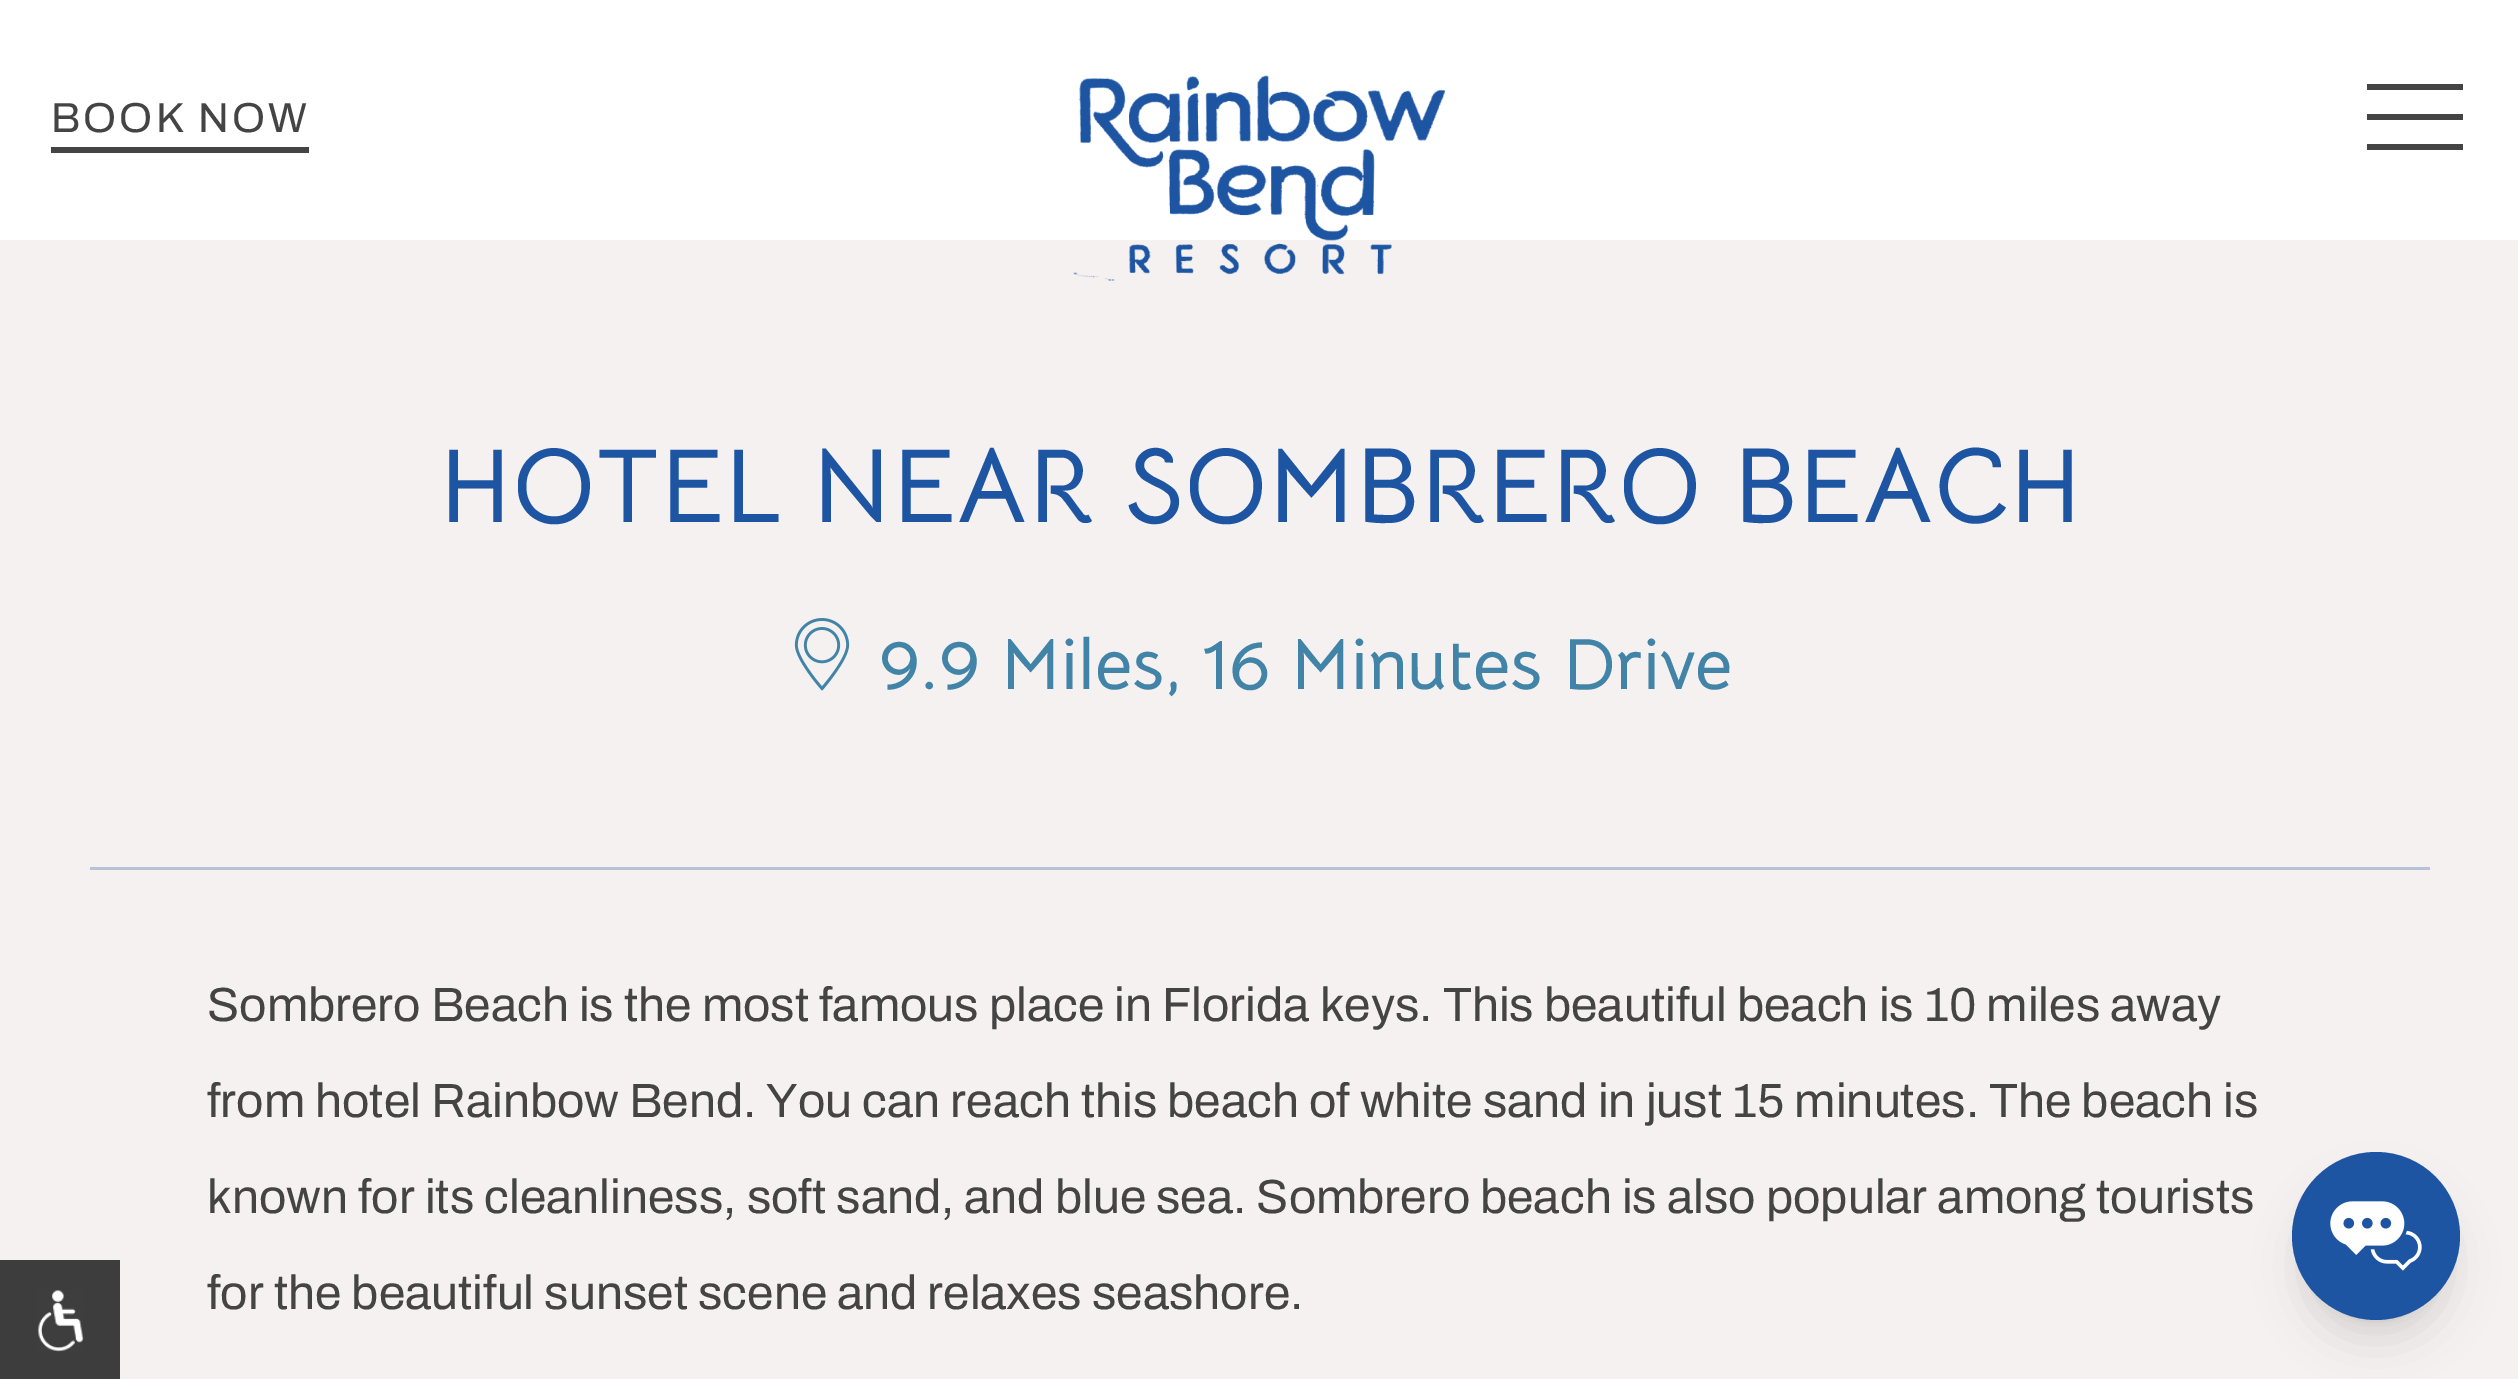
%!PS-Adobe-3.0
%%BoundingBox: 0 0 2518 1379
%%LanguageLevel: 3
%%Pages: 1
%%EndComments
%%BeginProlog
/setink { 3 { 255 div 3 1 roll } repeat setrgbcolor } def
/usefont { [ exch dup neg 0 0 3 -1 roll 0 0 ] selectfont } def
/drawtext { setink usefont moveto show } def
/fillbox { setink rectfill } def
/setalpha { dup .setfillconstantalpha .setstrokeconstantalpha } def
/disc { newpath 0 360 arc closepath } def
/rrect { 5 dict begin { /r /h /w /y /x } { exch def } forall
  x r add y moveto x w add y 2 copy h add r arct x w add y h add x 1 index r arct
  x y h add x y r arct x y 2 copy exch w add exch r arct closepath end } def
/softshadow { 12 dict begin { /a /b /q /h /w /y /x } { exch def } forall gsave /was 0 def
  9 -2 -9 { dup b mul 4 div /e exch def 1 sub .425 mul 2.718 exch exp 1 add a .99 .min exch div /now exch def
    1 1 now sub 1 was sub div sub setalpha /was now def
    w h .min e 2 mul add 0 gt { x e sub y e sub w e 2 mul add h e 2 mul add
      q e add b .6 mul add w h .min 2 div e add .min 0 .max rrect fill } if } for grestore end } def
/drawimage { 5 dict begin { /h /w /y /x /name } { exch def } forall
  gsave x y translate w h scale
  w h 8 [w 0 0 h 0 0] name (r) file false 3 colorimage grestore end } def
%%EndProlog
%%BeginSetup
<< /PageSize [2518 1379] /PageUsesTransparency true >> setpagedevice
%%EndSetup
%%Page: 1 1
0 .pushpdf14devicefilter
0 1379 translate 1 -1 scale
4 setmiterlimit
0 0 2518 1379 245 241 240 fillbox
0 0 2518 240 255 255 255 fillbox
/Archivo-SemiBold 42 usefont
68 68 68 setink
51 132 moveto 3 0 (BOOK NOW) ashow
51 147 258 6 68 68 68 fillbox
(assets/img1.rgb) 1073 75 373 206 drawimage
2367 84 96 6 68 68 68 fillbox
2367 114 96 6 68 68 68 fillbox
2367 144 96 6 68 68 68 fillbox
(HOTEL NEAR SOMBRERO BEACH) 439 522 /BellotaText-Bold 105.6 30 85 162 drawtext
(assets/img2.rgb) 794 618 56 73 drawimage
(9.9 Miles, 16 Minutes Drive) 879 689 /BellotaText-Bold 72 65 132 167 drawtext
90 867 2340 3 181 194 217 fillbox
(Sombrero Beach is the most famous place in Florida keys. This beautiful beach is 10 miles away) 207 1021 /Archivo-SemiBold 48 68 68 68 drawtext
(from hotel Rainbow Bend. You can reach this beach of white sand in just 15 minutes. The beach is) 207 1117 /Archivo-SemiBold 48 68 68 68 drawtext
(known for its cleanliness, soft sand, and blue sea. Sombrero beach is also popular among tourists) 207 1213 /Archivo-SemiBold 48 68 68 68 drawtext
(for the beautiful sunset scene and relaxes seashore.) 207 1309 /Archivo-SemiBold 48 68 68 68 drawtext
0 0 0 setink
2304 1176 144 144 72 9 0.1 softshadow
2301 1191 150 150 75 22.5 0.1 softshadow
30 85 162 setink
2376 1236 84 disc fill
(assets/img3.rgb) 2330 1201 92 70 drawimage
0 1260 120 119 61 61 61 fillbox
(assets/img4.rgb) 37 1289 47 63 drawimage
.poppdf14devicefilter showpage
%%EOF
